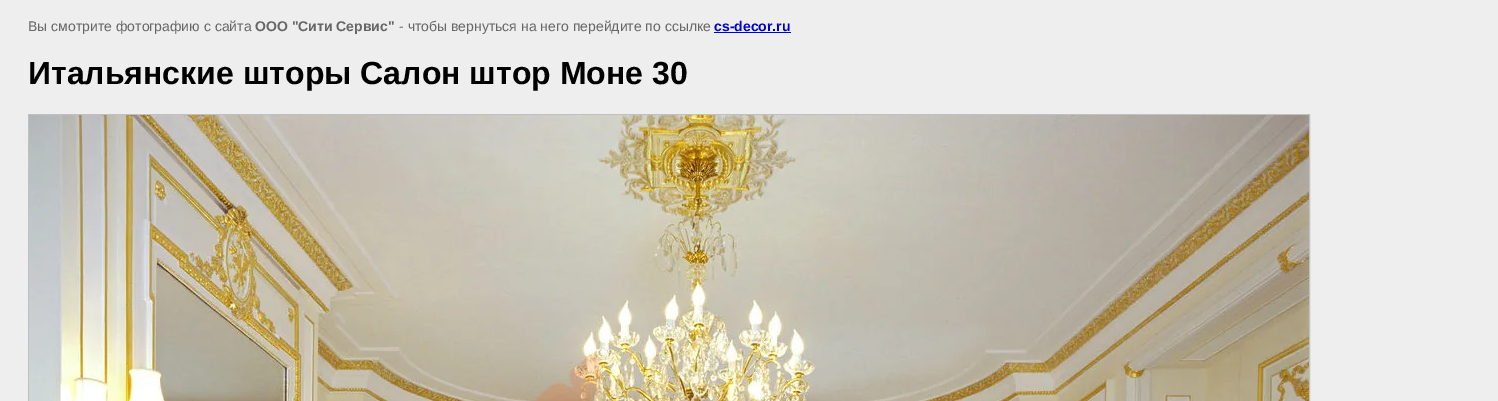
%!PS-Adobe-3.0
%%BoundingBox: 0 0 1498 401
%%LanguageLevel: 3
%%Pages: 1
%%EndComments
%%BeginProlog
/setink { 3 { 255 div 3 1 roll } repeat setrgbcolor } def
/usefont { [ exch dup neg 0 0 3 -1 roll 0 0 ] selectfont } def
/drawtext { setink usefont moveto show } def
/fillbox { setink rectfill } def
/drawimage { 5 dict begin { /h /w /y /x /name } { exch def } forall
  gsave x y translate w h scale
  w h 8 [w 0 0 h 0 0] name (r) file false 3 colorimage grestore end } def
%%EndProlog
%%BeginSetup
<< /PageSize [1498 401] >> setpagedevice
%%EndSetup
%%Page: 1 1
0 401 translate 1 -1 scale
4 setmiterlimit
0 0 1498 401 238 238 238 fillbox
(Вы смотрите фотографию с сайта) 28 31 /LiberationSans-Regular 14 102 102 102 drawtext
(ООО "Сити Сервис") 255 31 /LiberationSans-Bold 14 102 102 102 drawtext
(- чтобы вернуться на него перейдите по ссылке) 399 31 /LiberationSans-Regular 14 102 102 102 drawtext
(cs-decor.ru) 714 31 /LiberationSans-Bold 14 0 0 204 drawtext
714 32 77 1 0 0 204 fillbox
(Итальянские шторы Салон штор Моне 30) 28 84 /LiberationSans-Bold 32 0 0 0 drawtext
192 192 192 setink
28.5 114.5 1281 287 rectstroke
(assets/img1.rgb) 29 115 1280 286 drawimage
showpage
%%EOF
